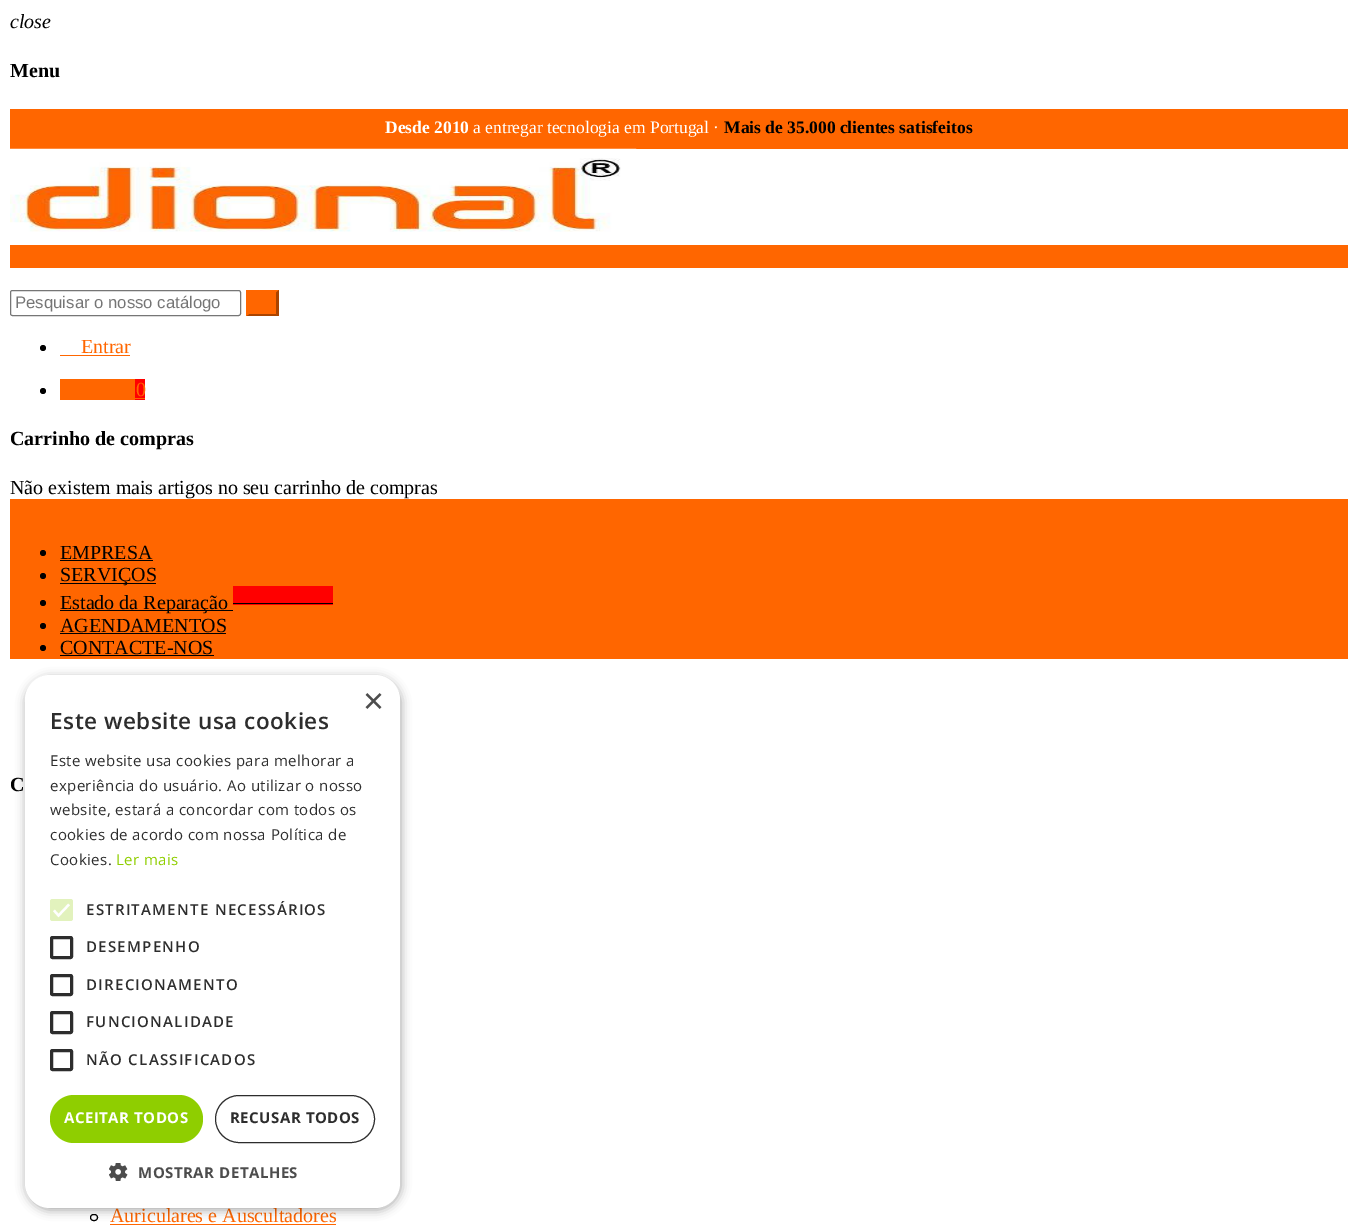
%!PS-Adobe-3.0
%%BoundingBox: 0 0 1357 1232
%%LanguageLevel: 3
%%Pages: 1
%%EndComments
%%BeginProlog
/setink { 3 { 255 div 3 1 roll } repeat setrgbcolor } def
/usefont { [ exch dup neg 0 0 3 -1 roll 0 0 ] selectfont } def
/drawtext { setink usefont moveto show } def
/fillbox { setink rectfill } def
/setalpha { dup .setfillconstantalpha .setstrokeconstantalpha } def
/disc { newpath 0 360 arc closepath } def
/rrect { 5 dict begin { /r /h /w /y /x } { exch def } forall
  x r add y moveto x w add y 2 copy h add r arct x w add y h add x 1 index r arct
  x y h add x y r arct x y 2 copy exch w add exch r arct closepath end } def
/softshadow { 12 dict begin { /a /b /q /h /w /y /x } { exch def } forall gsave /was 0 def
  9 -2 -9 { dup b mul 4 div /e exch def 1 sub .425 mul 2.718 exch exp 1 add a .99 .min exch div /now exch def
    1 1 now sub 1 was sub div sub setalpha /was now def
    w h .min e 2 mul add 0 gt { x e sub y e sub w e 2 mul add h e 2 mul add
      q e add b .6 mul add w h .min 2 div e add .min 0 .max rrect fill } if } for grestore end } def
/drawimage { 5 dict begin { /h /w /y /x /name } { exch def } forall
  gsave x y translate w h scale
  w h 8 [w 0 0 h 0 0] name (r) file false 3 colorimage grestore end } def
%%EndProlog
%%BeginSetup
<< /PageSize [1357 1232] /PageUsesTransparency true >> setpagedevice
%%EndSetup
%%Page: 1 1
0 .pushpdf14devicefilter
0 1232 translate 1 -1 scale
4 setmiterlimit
0 0 1357 1232 255 255 255 fillbox
(close) 10 28 /LiberationSerif-Italic 20 0 0 0 drawtext
(Menu) 10 77 /LiberationSerif-Bold 20 0 0 0 drawtext
10 109 1338 40 255 102 0 fillbox
(Desde 2010) 385 133 /LiberationSerif-Bold 17.5 255 255 255 drawtext
(a entregar tecnologia em Portugal ·) 473 133 /LiberationSerif-Regular 17.5 255 255 255 drawtext
(Mais de 35.000 clientes satisfeitos) 724 133 /LiberationSerif-Bold 17.5 0 0 0 drawtext
(assets/img1.rgb) 10 148 627 84 drawimage
10 245 1338 23 255 102 0 fillbox
118 118 118 setink
10.5 290.5 230 25 2 rrect stroke
(Pesquisar o nosso catálogo) 15 308 /LiberationSans-Regular 16.75 117 117 117 drawtext
246 290 33 26 255 102 0 fillbox
170 68 0 setink
279 290 moveto 279 316 lineto 276 314 lineto 276 292.5 lineto closepath fill
279 316 moveto 246 316 lineto 249 314 lineto 276 314 lineto closepath fill
255 102 0 setink
246 316 moveto 246 290 lineto 249 292.5 lineto 249 314 lineto closepath fill
0 0 0 setink
43 348 3 disc fill
(Entrar) 81 353 /LiberationSerif-Regular 20 255 102 0 drawtext
60 355 70 1 255 102 0 fillbox
0 0 0 setink
43 391 3 disc fill
135 379 10 21 255 0 0 fillbox
(0) 136 396 /LiberationSerif-Regular 20 255 102 0 drawtext
60 379 75 21 255 102 0 fillbox
135 398 10 1 255 102 0 fillbox
(Carrinho de compras) 10 445 /LiberationSerif-Bold 20 0 0 0 drawtext
(Não existem mais artigos no seu carrinho de compras) 10 494 /LiberationSerif-Regular 20 0 0 0 drawtext
10 499 1338 160 255 102 0 fillbox
0 0 0 setink
43 553 3 disc fill
(EMPRESA) 60 559 /LiberationSerif-Regular 20 0 0 0 drawtext
60 560 93 1 0 0 0 fillbox
43 576 3 disc fill
60 583 96 1 0 0 0 fillbox
(SERVIÇOS) 60 581 /LiberationSerif-Regular 20 0 0 0 drawtext
43 603 3 disc fill
60 610 173 1 0 0 0 fillbox
(Estado da Reparação) 60 609 /LiberationSerif-Regular 20 0 0 0 drawtext
233 586 100 19 255 0 0 fillbox
233 603 100 1 0 0 0 fillbox
43 626 3 disc fill
(AGENDAMENTOS) 60 632 /LiberationSerif-Regular 20 0 0 0 drawtext
60 633 166 1 0 0 0 fillbox
43 648 3 disc fill
(CONTACTE-NOS) 60 654 /LiberationSerif-Regular 20 0 0 0 drawtext
60 655 154 1 0 0 0 fillbox
(C) 10 791 /LiberationSerif-Bold 20 0 0 0 drawtext
90.5 1214.5 7 6 3 rrect stroke
(Auriculares e Auscultadores) 110 1222 /LiberationSerif-Regular 20 255 102 0 drawtext
110 1224 226 1 255 102 0 fillbox
0 0 0 setink
26 678 375 532 25 5 0.35 softshadow
255 255 255 setink
25 675 375 533 25 rrect fill
(×) 363 713 /LiberationSans-Regular 36 77 77 77 drawtext
/OpenSans-SemiBold 22.5 usefont
45 45 45 setink
50 729 moveto 0.5 0 (Este website usa cookies) ashow
/OpenSans-Regular 15 usefont
50 766 moveto 0.4 0 (Este website usa cookies para melhorar a) ashow
50 791 moveto 0.4 0 (experiência do usuário. Ao utilizar o nosso) ashow
50 815 moveto 0.4 0 (website, estará a concordar com todos os) ashow
50 840 moveto 0.4 0 (cookies de acordo com nossa Política de) ashow
50 865 moveto 0.4 0 (Cookies.) ashow
143 206 0 setink
116 865 moveto 0.4 0 (Ler mais) ashow
226 242 189 setink
50 899 23 22 2.5 rrect fill
255 255 255 setink
2.3 setlinewidth
54 910.5 moveto 58.5 915.5 lineto 69 904.5 lineto stroke
/OpenSans-SemiBold 15 usefont
45 45 45 setink
86 915 moveto 1.25 0 (ESTRITAMENTE NECESSÁRIOS) ashow
3 setlinewidth
51.5 937.5 20 20 1 rrect stroke
86 952 moveto 1.25 0 (DESEMPENHO) ashow
51.5 975.5 20 19 1 rrect stroke
86 990 moveto 1.25 0 (DIRECIONAMENTO) ashow
51.5 1012.5 20 20 1 rrect stroke
86 1027 moveto 1.25 0 (FUNCIONALIDADE) ashow
51.5 1050.5 20 19 1 rrect stroke
86 1065 moveto 1.25 0 (NÃO CLASSIFICADOS) ashow
143 206 0 setink
50 1095 153 48 24 rrect fill
/OpenSans-Bold 15 usefont
255 255 255 setink
64 1123 moveto 0.5 0 (ACEITAR TODOS) ashow
45 45 45 setink
1 setlinewidth
215.5 1095.5 159 47 23.5 rrect stroke
230 1123 moveto 0.5 0 (RECUSAR TODOS) ashow
(assets/img2.rgb) 109 1163 19 18 drawimage
77 77 77 setink
138 1178 moveto 0.5 0 (MOSTRAR DETALHES) ashow
.poppdf14devicefilter showpage
%%EOF
